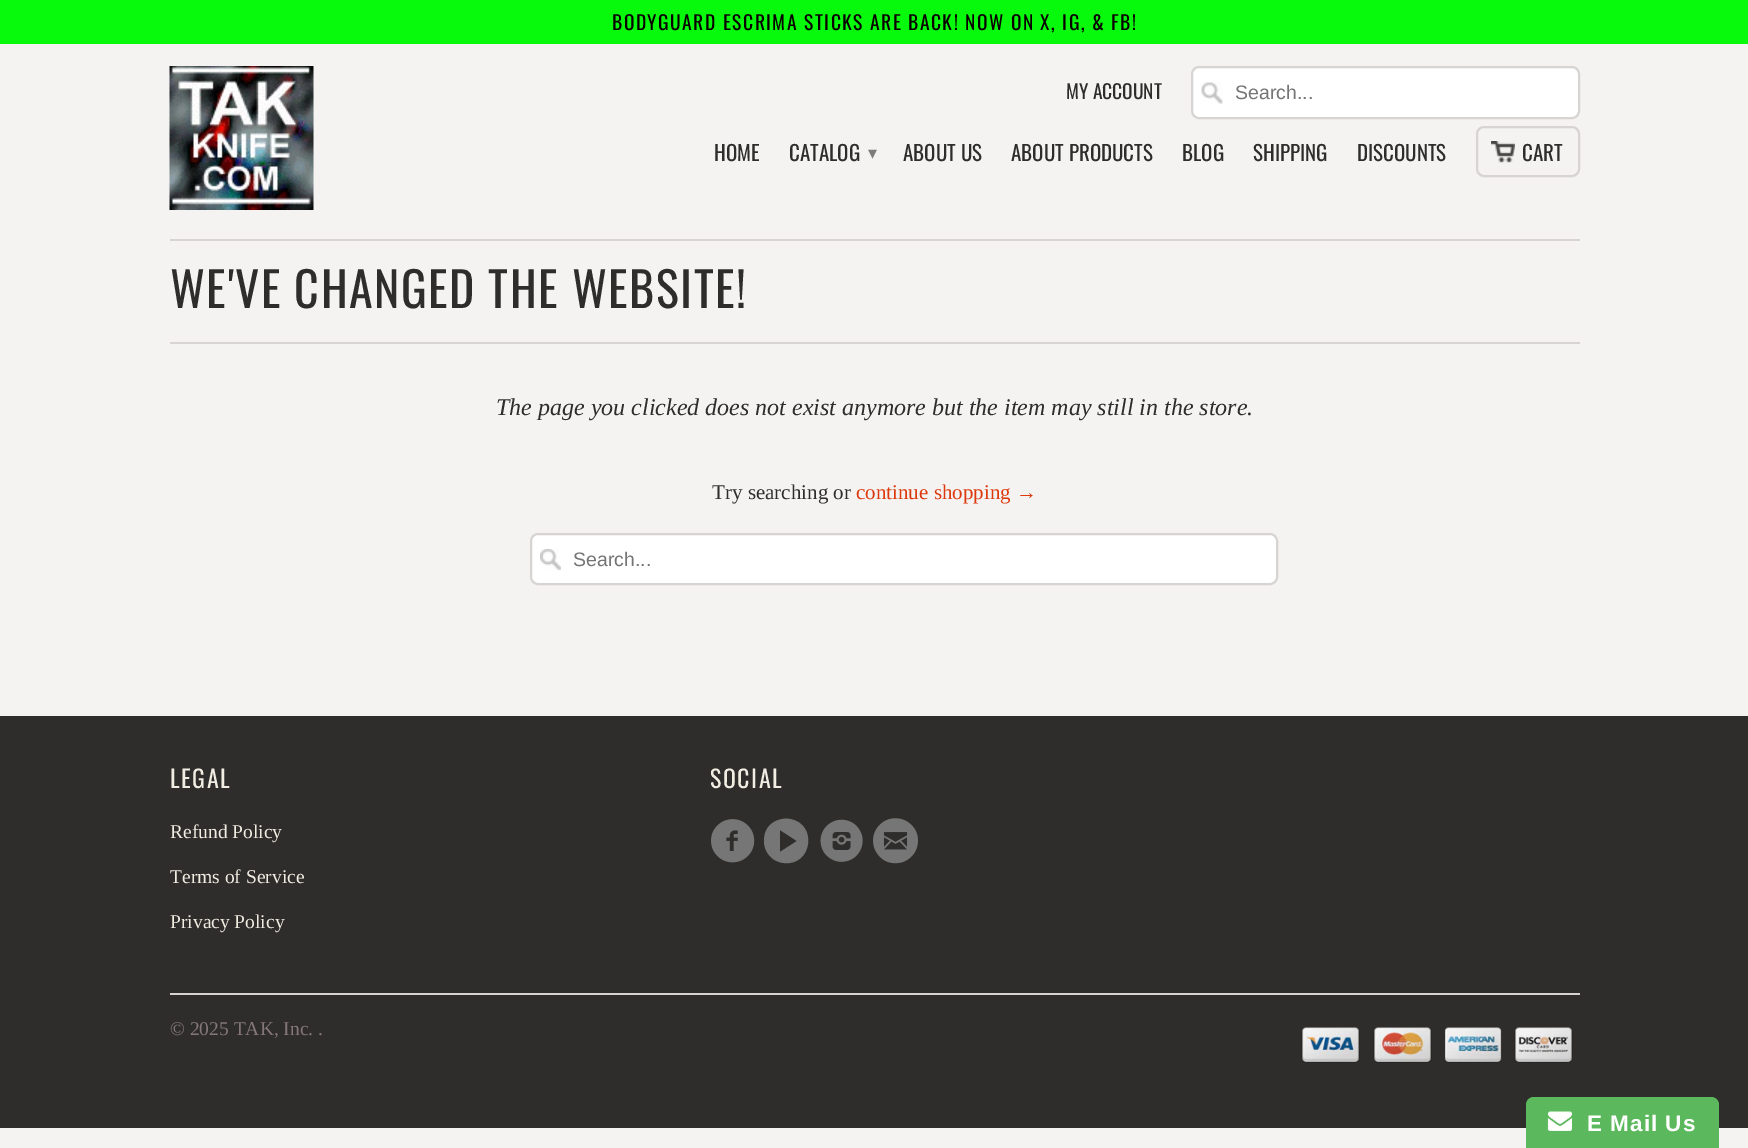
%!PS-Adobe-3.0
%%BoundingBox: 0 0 1748 1148
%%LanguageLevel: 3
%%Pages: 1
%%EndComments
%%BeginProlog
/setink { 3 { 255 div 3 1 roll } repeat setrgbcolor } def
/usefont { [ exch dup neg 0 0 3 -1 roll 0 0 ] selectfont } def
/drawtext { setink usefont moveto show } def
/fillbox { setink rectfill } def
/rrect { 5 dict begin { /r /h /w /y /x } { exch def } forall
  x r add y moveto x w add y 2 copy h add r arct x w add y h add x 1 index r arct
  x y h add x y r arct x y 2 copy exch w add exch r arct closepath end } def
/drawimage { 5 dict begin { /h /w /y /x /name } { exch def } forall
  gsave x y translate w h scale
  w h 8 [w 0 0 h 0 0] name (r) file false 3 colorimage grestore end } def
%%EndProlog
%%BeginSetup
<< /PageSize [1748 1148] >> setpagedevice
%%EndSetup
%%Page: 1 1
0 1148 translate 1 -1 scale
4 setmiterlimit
0 0 1748 1148 244 243 241 fillbox
0 0 1748 44 7 249 11 fillbox
/Oswald-Regular 19.5 usefont
10 0 0 setink
612 30 moveto 1.5 0 (BODYGUARD ESCRIMA STICKS ARE BACK! NOW ON X, IG, & FB!) ashow
170 239 1410 2 215 212 211 fillbox
(assets/img1.rgb) 169 66 145 144 drawimage
(MY ACCOUNT) 1066 99 /Oswald-Regular 19.5 46 45 44 drawtext
255 255 255 setink
1191 66 389 53 8 rrect fill
(assets/img2.rgb) 1201 82 22 22 drawimage
215 212 211 setink
2 setlinewidth
1192 67 387 51 7 rrect stroke
(Search...) 1235 99 /LiberationSans-Regular 19.5 117 117 117 drawtext
(HOME) 714 161 /Oswald-Regular 21 46 45 44 drawtext
(CATALOG) 789 161 /Oswald-Regular 21 46 45 44 drawtext
(▾) 868 159 /DejaVuSans-Regular 18 125 124 123 drawtext
(ABOUT US) 903 161 /Oswald-Regular 21 46 45 44 drawtext
(ABOUT PRODUCTS) 1011 161 /Oswald-Regular 21 46 45 44 drawtext
(BLOG) 1182 161 /Oswald-Regular 21 46 45 44 drawtext
(SHIPPING) 1253 161 /Oswald-Regular 21 46 45 44 drawtext
(DISCOUNTS) 1357 161 /Oswald-Regular 21 46 45 44 drawtext
(assets/img3.rgb) 1491 141 24 22 drawimage
215 212 211 setink
1477 127 102 49 7 rrect stroke
(CART) 1522 161 /Oswald-Regular 21 46 45 44 drawtext
170 342 1410 2 215 212 211 fillbox
/Oswald-Regular 48 usefont
46 45 44 setink
170 308 moveto 1.5 0 (WE'VE CHANGED THE WEBSITE!) ashow
(The page you clicked does not exist anymore but the item may still in the store.) 496 415 /LiberationSerif-Italic 24 46 45 44 drawtext
(Try searching or) 712 499 /LiberationSerif-Regular 21 46 45 44 drawtext
(continue shopping →) 856 499 /LiberationSerif-Regular 21 221 57 13 drawtext
255 255 255 setink
530 533 748 52 8 rrect fill
(assets/img4.rgb) 540 549 21 21 drawimage
215 212 211 setink
531 534 746 50 7 rrect stroke
(Search...) 573 566 /LiberationSans-Regular 19.5 117 117 117 drawtext
0 716 1748 412 46 45 44 fillbox
/Oswald-Regular 24 usefont
242 237 227 setink
170 788 moveto 1.5 0 (LEGAL) ashow
(Refund Policy) 170 838 /LiberationSerif-Regular 19.5 242 237 227 drawtext
(Terms of Service) 170 883 /LiberationSerif-Regular 19.5 242 237 227 drawtext
(Privacy Policy) 170 928 /LiberationSerif-Regular 19.5 242 237 227 drawtext
/Oswald-Regular 24 usefont
710 788 moveto 1.5 0 (SOCIAL) ashow
(assets/img5.rgb) 711 819 44 44 drawimage
118 118 118 setink
764 841 moveto 764 833 767 826 774 822 curveto 779 819 785 818 790 819 curveto 818 824 812 866 784 863 curveto 772 862 764 852 764 841 curveto closepath 780 852 moveto 797 841 lineto 780 830 lineto closepath fill
(assets/img6.rgb) 820 819 43 43 drawimage
(assets/img7.rgb) 873 818 45 46 drawimage
170 993 1410 2 215 212 211 fillbox
(© 2025 TAK, Inc. .) 170 1035 /LiberationSerif-Regular 19.5 133 119 119 drawtext
(assets/img8.rgb) 1301 1027 59 36 drawimage
(assets/img9.rgb) 1373 1027 59 36 drawimage
(assets/img10.rgb) 1444 1027 58 36 drawimage
(assets/img11.rgb) 1514 1027 59 36 drawimage
92 184 92 setink
1534 1097 moveto 1711 1097 lineto 1715.5 1097 1719 1100.5 1719 1105 curveto 1719 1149 lineto 1526 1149 lineto 1526 1105 lineto 1526 1100.5 1529.5 1097 1534 1097 curveto closepath fill
(assets/img12.rgb) 1547 1111 25 20 drawimage
/LiberationSans-Bold 22.5 usefont
255 255 255 setink
1587 1131 moveto 1 0 (E Mail Us) ashow
showpage
%%EOF
